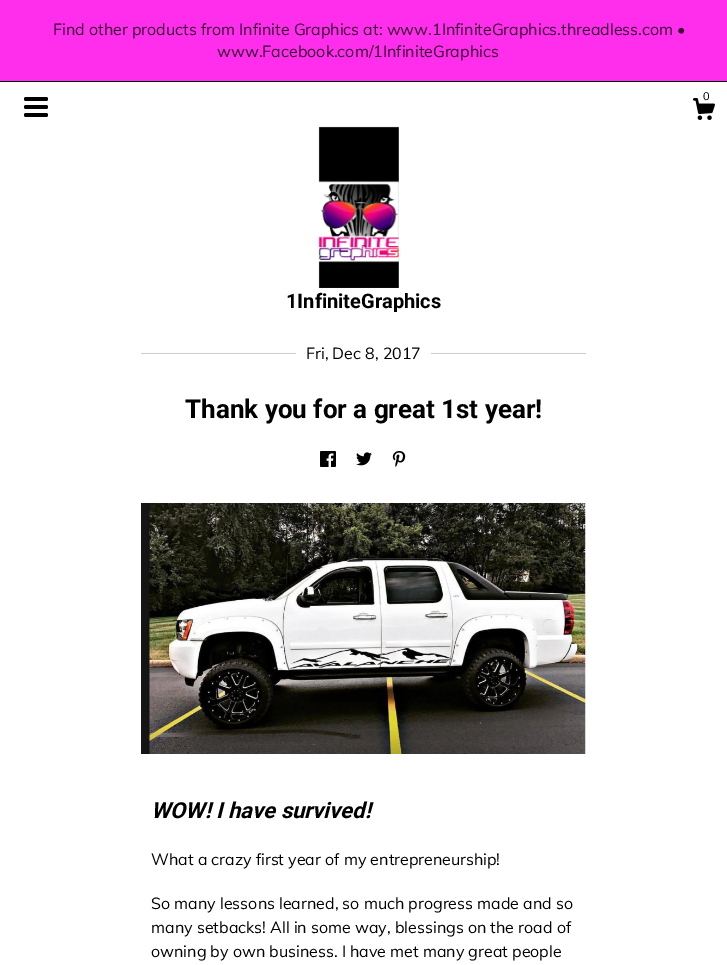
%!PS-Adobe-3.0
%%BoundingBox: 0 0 727 965
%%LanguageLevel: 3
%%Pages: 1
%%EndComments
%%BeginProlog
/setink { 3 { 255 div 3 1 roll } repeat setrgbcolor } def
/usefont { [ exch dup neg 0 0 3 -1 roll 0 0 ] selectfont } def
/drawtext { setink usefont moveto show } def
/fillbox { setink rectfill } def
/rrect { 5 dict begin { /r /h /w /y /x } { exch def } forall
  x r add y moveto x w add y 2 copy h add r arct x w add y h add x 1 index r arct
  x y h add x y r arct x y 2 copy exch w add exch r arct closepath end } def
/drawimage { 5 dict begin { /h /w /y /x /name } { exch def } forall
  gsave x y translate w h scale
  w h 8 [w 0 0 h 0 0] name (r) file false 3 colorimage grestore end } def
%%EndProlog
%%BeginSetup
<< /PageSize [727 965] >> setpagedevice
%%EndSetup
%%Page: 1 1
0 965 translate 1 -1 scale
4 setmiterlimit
0 0 727 965 255 255 255 fillbox
0 0 727 81 255 46 237 fillbox
0 81 727 1 0 0 0 fillbox
(Find other products from Infinite Graphics at: www.1InfiniteGraphics.threadless.com •) 53 35 /Muli-Regular 16 51 9 47 drawtext
(www.Facebook.com/1InfiniteGraphics) 217 57 /Muli-Regular 16 51 9 47 drawtext
0 0 0 setink
24 97 24 4 2 rrect fill
24 105 24 4 2 rrect fill
24 113 24 4 2 rrect fill
(assets/img1.rgb) 693 98 22 22 drawimage
(0) 703 100 /Muli-Regular 11 0 0 0 drawtext
(assets/img2.rgb) 318 126 81 162 drawimage
(1InfiniteGraphics) 286 308 /Roboto-Bold 20 0 0 0 drawtext
141 353 445 1 204 204 204 fillbox
296 353 135 1 255 255 255 fillbox
(Fri, Dec 8, 2017) 306 359 /Muli-Regular 16 0 0 0 drawtext
(Thank you for a great 1st year!) 185 418 /Roboto-Bold 26 0 0 0 drawtext
(assets/img3.rgb) 320 451 16 16 drawimage
(assets/img4.rgb) 356 452 16 14 drawimage
(assets/img5.rgb) 392 451 14 16 drawimage
(assets/img6.rgb) 141 503 445 251 drawimage
(WOW! I have survived!) 151 818 /Roboto-BoldItalic 22 0 0 0 drawtext
(What a crazy first year of my entrepreneurship!) 151 865 /Muli-Regular 16 0 0 0 drawtext
(So many lessons learned, so much progress made and so) 151 909 /Muli-Regular 16 0 0 0 drawtext
(many setbacks! All in some way, blessings on the road of) 151 933 /Muli-Regular 16 0 0 0 drawtext
(owning by own business. I have met many great people) 151 957 /Muli-Regular 16 0 0 0 drawtext
showpage
%%EOF
